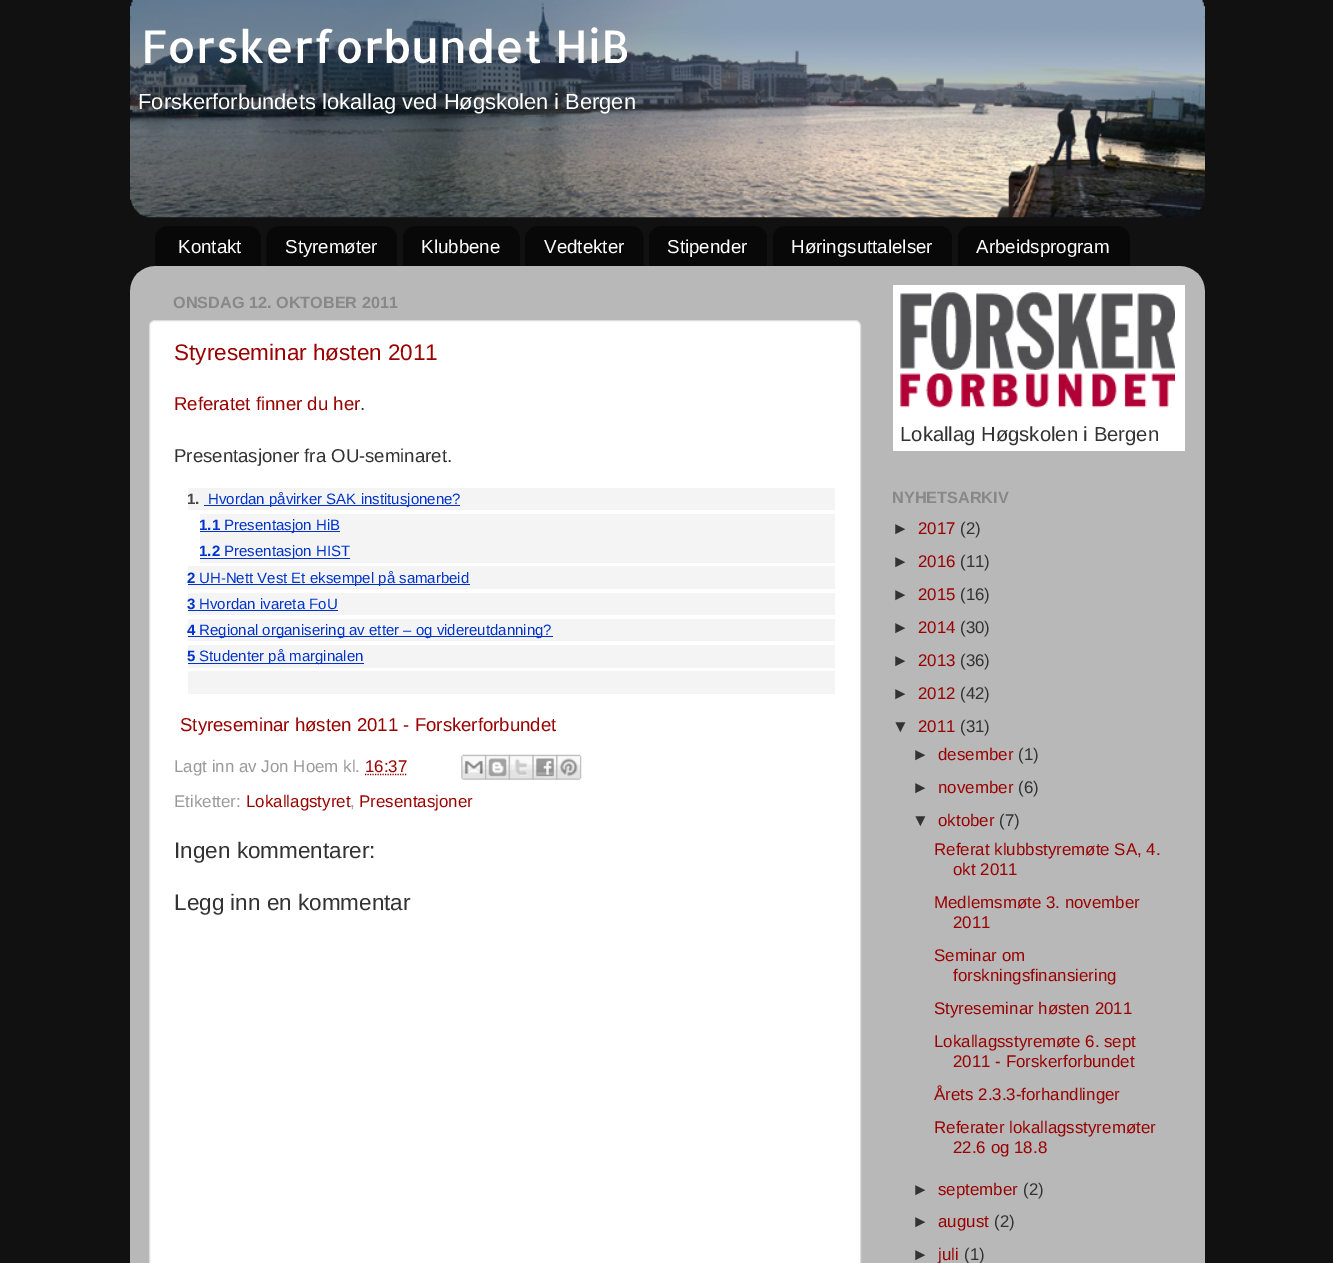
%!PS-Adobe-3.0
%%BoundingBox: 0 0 1333 1263
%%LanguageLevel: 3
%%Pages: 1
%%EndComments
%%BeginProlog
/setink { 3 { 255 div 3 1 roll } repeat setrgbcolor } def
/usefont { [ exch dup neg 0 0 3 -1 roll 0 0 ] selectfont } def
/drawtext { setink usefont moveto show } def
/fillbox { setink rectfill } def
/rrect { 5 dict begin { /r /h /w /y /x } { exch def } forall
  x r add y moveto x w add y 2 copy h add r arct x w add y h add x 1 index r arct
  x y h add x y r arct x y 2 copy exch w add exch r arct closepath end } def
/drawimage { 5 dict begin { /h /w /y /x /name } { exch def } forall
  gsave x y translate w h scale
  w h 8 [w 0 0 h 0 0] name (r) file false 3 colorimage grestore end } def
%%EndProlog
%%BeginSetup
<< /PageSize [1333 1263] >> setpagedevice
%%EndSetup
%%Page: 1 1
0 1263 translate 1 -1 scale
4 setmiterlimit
0 0 1333 1263 17 17 17 fillbox
(assets/img1.rgb) 130 0 1075 218 drawimage
(Forskerforbundet HiB) 141 63 /Allerta-Regular 45 255 255 255 drawtext
(Forskerforbundets lokallag ved Høgskolen i Bergen) 138 109 /LiberationSans-Regular 21.9 255 255 255 drawtext
(assets/img2.rgb) 155 226 106 40 drawimage
(Kontakt) 178 253 /LiberationSans-Regular 18.75 255 255 255 drawtext
(assets/img3.rgb) 266 226 131 40 drawimage
(Styremøter) 285 253 /LiberationSans-Regular 18.75 255 255 255 drawtext
(assets/img4.rgb) 403 226 117 40 drawimage
(Klubbene) 421 253 /LiberationSans-Regular 18.75 255 255 255 drawtext
(assets/img5.rgb) 525 226 119 40 drawimage
(Vedtekter) 544 253 /LiberationSans-Regular 18.75 255 255 255 drawtext
(assets/img6.rgb) 649 226 118 40 drawimage
(Stipender) 667 253 /LiberationSans-Regular 18.75 255 255 255 drawtext
(assets/img7.rgb) 773 226 179 40 drawimage
(Høringsuttalelser) 791 253 /LiberationSans-Regular 18.75 255 255 255 drawtext
(assets/img8.rgb) 958 226 172 40 drawimage
(Arbeidsprogram) 976 253 /LiberationSans-Regular 18.75 255 255 255 drawtext
(assets/img9.rgb) 130 266 1075 997 drawimage
(ONSDAG 12. OKTOBER 2011) 173 308 /LiberationSans-Bold 16.25 136 136 136 drawtext
255 255 255 setink
149.5 320.5 711 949 5.5 rrect gsave fill grestore
221 221 221 setink
stroke
(Styreseminar høsten 2011) 174 360 /LiberationSans-Regular 22.5 153 0 0 drawtext
(Referatet finner du her) 174 410 /LiberationSans-Regular 18.6 153 0 0 drawtext
(.) 360 410 /LiberationSans-Regular 18.6 51 51 51 drawtext
(Presentasjoner fra OU-seminaret.) 174 462 /LiberationSans-Regular 18.6 51 51 51 drawtext
188 488 647 22 244 244 244 fillbox
200 514 635 49 244 244 244 fillbox
188 566 647 23 244 244 244 fillbox
188 593 647 22 244 244 244 fillbox
188 619 647 22 244 244 244 fillbox
188 645 647 23 244 244 244 fillbox
188 671 647 23 244 244 244 fillbox
(1.) 187 504 /LiberationSans-Bold 15 68 68 68 drawtext
204 505 256 1 0 51 204 fillbox
(Hvordan påvirker SAK institusjonene?) 208 504 /LiberationSans-Regular 15 0 51 204 drawtext
(1.1) 199 530 /LiberationSans-Bold 15 0 51 204 drawtext
200 531 140 1 0 51 204 fillbox
(Presentasjon HiB) 224 530 /LiberationSans-Regular 15 0 51 204 drawtext
(1.2) 199 556 /LiberationSans-Bold 15 0 51 204 drawtext
200 558 150 1 0 51 204 fillbox
(Presentasjon HIST) 224 556 /LiberationSans-Regular 15 0 51 204 drawtext
(2) 187 583 /LiberationSans-Bold 15 0 51 204 drawtext
188 584 282 1 0 51 204 fillbox
(UH-Nett Vest Et eksempel på samarbeid) 199 583 /LiberationSans-Regular 15 0 51 204 drawtext
(3) 187 609 /LiberationSans-Bold 15 0 51 204 drawtext
188 610 150 1 0 51 204 fillbox
(Hvordan ivareta FoU) 199 609 /LiberationSans-Regular 15 0 51 204 drawtext
(4) 187 635 /LiberationSans-Bold 15 0 51 204 drawtext
188 636 365 1 0 51 204 fillbox
(Regional organisering av etter – og videreutdanning?) 199 635 /LiberationSans-Regular 15 0 51 204 drawtext
(5) 187 661 /LiberationSans-Bold 15 0 51 204 drawtext
188 663 176 1 0 51 204 fillbox
(Studenter på marginalen) 199 661 /LiberationSans-Regular 15 0 51 204 drawtext
(Styreseminar høsten 2011 - Forskerforbundet) 180 731 /LiberationSans-Regular 18.6 153 0 0 drawtext
(Lagt inn av Jon Hoem kl.) 174 772 /LiberationSans-Regular 16.9 153 153 153 drawtext
(16:37) 365 772 /LiberationSans-Regular 16.9 153 0 0 drawtext
1.2 setlinewidth
[1.25 1.25] 0 setdash
365 774.5 moveto 407 774.5 lineto stroke
(assets/img10.rgb) 461 754 26 26 drawimage
(assets/img11.rgb) 485 754 25 26 drawimage
(assets/img12.rgb) 508 754 26 26 drawimage
(assets/img13.rgb) 532 754 26 26 drawimage
(assets/img14.rgb) 556 754 26 26 drawimage
(Etiketter:) 174 807 /LiberationSans-Regular 16.9 153 153 153 drawtext
(Lokallagstyret) 246 807 /LiberationSans-Regular 16.9 153 0 0 drawtext
(,) 350 807 /LiberationSans-Regular 16.9 153 153 153 drawtext
(Presentasjoner) 359 807 /LiberationSans-Regular 16.9 153 0 0 drawtext
(Ingen kommentarer:) 174 858 /LiberationSans-Regular 22.5 51 51 51 drawtext
(Legg inn en kommentar) 174 910 /LiberationSans-Regular 22.5 51 51 51 drawtext
893 285 292 166 255 255 255 fillbox
(assets/img15.rgb) 900 292 275 116 drawimage
(Lokallag Høgskolen i Bergen) 900 441 /LiberationSans-Regular 20.25 51 51 51 drawtext
(NYHETSARKIV) 892 503 /LiberationSans-Bold 16.25 136 136 136 drawtext
(►) 892 534 /LiberationSans-Regular 16.9 51 51 51 drawtext
(2017) 918 534 /LiberationSans-Regular 16.9 153 0 0 drawtext
(\(2\)) 960 534 /LiberationSans-Regular 16.9 51 51 51 drawtext
(►) 892 567 /LiberationSans-Regular 16.9 51 51 51 drawtext
(2016) 918 567 /LiberationSans-Regular 16.9 153 0 0 drawtext
(\(11\)) 960 567 /LiberationSans-Regular 16.9 51 51 51 drawtext
(►) 892 600 /LiberationSans-Regular 16.9 51 51 51 drawtext
(2015) 918 600 /LiberationSans-Regular 16.9 153 0 0 drawtext
(\(16\)) 960 600 /LiberationSans-Regular 16.9 51 51 51 drawtext
(►) 892 633 /LiberationSans-Regular 16.9 51 51 51 drawtext
(2014) 918 633 /LiberationSans-Regular 16.9 153 0 0 drawtext
(\(30\)) 960 633 /LiberationSans-Regular 16.9 51 51 51 drawtext
(►) 892 666 /LiberationSans-Regular 16.9 51 51 51 drawtext
(2013) 918 666 /LiberationSans-Regular 16.9 153 0 0 drawtext
(\(36\)) 960 666 /LiberationSans-Regular 16.9 51 51 51 drawtext
(►) 892 699 /LiberationSans-Regular 16.9 51 51 51 drawtext
(2012) 918 699 /LiberationSans-Regular 16.9 153 0 0 drawtext
(\(42\)) 960 699 /LiberationSans-Regular 16.9 51 51 51 drawtext
(▼) 892 732 /LiberationSans-Regular 16.9 51 51 51 drawtext
(2011) 918 732 /LiberationSans-Regular 16.9 153 0 0 drawtext
(\(31\)) 960 732 /LiberationSans-Regular 16.9 51 51 51 drawtext
(►) 912 760 /LiberationSans-Regular 16.9 51 51 51 drawtext
(desember) 938 760 /LiberationSans-Regular 16.9 153 0 0 drawtext
(\(1\)) 1018 760 /LiberationSans-Regular 16.9 51 51 51 drawtext
(►) 912 793 /LiberationSans-Regular 16.9 51 51 51 drawtext
(november) 938 793 /LiberationSans-Regular 16.9 153 0 0 drawtext
(\(6\)) 1018 793 /LiberationSans-Regular 16.9 51 51 51 drawtext
(▼) 912 826 /LiberationSans-Regular 16.9 51 51 51 drawtext
(oktober) 938 826 /LiberationSans-Regular 16.9 153 0 0 drawtext
(\(7\)) 999 826 /LiberationSans-Regular 16.9 51 51 51 drawtext
(Referat klubbstyremøte SA, 4.) 934 855 /LiberationSans-Regular 16.9 153 0 0 drawtext
(okt 2011) 953 875 /LiberationSans-Regular 16.9 153 0 0 drawtext
(Medlemsmøte 3. november) 934 908 /LiberationSans-Regular 16.9 153 0 0 drawtext
(2011) 953 928 /LiberationSans-Regular 16.9 153 0 0 drawtext
(Seminar om) 934 961 /LiberationSans-Regular 16.9 153 0 0 drawtext
(forskningsfinansiering) 953 981 /LiberationSans-Regular 16.9 153 0 0 drawtext
(Styreseminar høsten 2011) 934 1014 /LiberationSans-Regular 16.9 153 0 0 drawtext
(Lokallagsstyremøte 6. sept) 934 1047 /LiberationSans-Regular 16.9 153 0 0 drawtext
(2011 - Forskerforbundet) 953 1067 /LiberationSans-Regular 16.9 153 0 0 drawtext
(Årets 2.3.3-forhandlinger) 934 1100 /LiberationSans-Regular 16.9 153 0 0 drawtext
(Referater lokallagsstyremøter) 934 1133 /LiberationSans-Regular 16.9 153 0 0 drawtext
(22.6 og 18.8) 953 1153 /LiberationSans-Regular 16.9 153 0 0 drawtext
(►) 912 1195 /LiberationSans-Regular 16.9 51 51 51 drawtext
(september) 938 1195 /LiberationSans-Regular 16.9 153 0 0 drawtext
(\(2\)) 1023 1195 /LiberationSans-Regular 16.9 51 51 51 drawtext
(►) 912 1227 /LiberationSans-Regular 16.9 51 51 51 drawtext
(august) 938 1227 /LiberationSans-Regular 16.9 153 0 0 drawtext
(\(2\)) 994 1227 /LiberationSans-Regular 16.9 51 51 51 drawtext
(►) 912 1260 /LiberationSans-Regular 16.9 51 51 51 drawtext
(juli) 938 1260 /LiberationSans-Regular 16.9 153 0 0 drawtext
(\(1\)) 964 1260 /LiberationSans-Regular 16.9 51 51 51 drawtext
showpage
%%EOF
